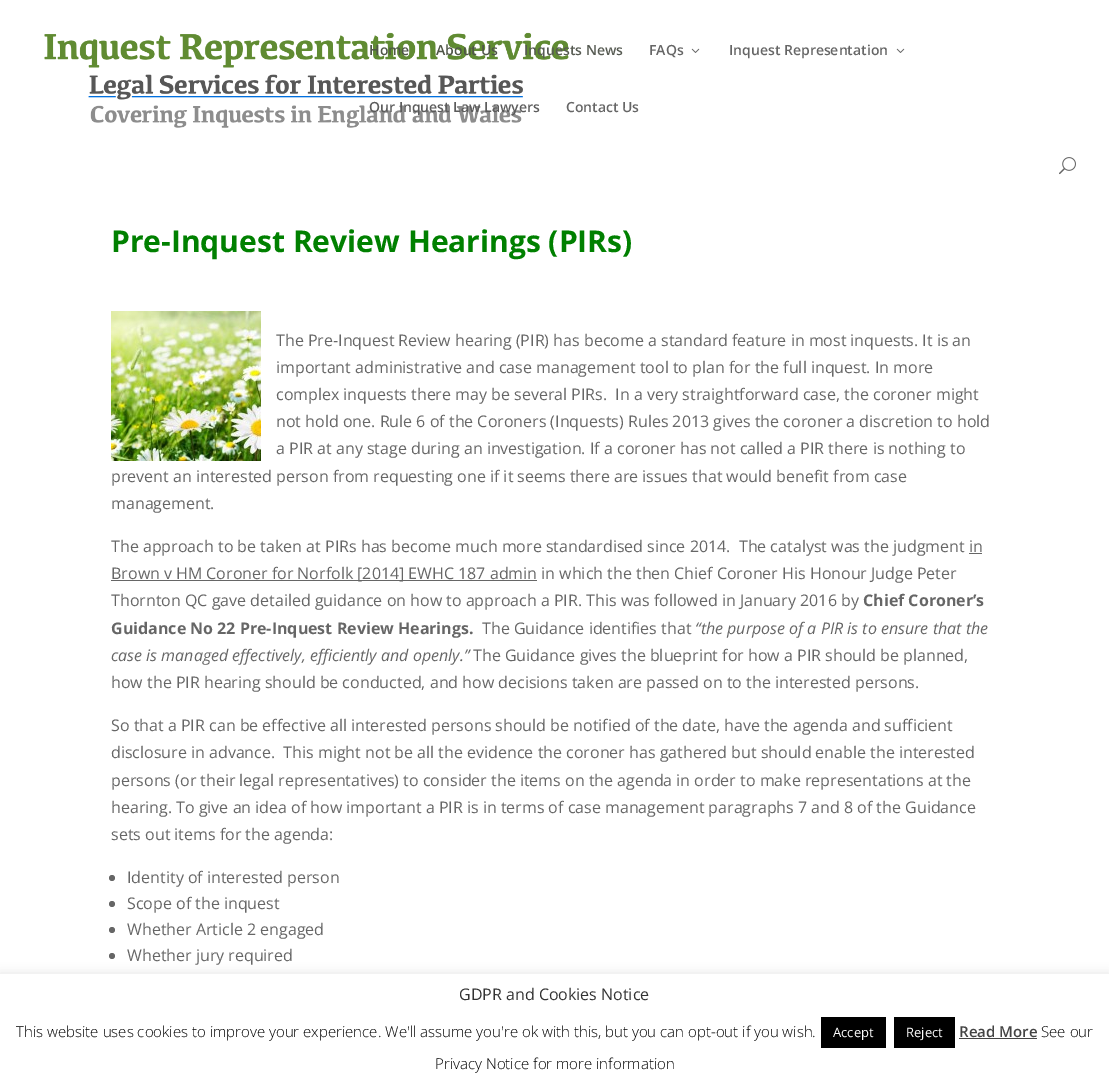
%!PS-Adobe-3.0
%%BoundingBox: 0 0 1109 1089
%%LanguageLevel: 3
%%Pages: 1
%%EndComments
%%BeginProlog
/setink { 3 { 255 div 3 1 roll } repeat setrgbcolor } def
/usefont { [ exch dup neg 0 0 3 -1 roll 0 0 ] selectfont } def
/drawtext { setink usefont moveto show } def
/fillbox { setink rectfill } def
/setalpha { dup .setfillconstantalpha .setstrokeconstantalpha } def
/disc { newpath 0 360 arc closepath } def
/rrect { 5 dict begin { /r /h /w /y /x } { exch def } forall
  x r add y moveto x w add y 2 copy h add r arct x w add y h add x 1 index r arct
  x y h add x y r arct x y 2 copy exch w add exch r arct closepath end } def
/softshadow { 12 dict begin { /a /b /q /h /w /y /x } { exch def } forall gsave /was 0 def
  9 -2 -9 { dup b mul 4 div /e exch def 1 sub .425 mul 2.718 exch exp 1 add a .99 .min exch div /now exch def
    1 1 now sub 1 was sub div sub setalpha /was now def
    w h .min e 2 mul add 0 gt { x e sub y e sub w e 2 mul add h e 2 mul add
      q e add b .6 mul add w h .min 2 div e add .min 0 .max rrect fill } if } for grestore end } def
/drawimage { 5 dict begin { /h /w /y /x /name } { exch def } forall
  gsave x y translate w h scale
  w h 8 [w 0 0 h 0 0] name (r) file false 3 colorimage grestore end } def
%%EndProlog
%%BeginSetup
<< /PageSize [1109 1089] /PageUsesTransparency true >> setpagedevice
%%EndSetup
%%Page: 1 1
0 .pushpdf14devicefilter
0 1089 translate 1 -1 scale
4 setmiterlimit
0 0 1109 1089 255 255 255 fillbox
(assets/img1.rgb) 44 32 525 96 drawimage
(Home) 369 55 /OpenSans-SemiBold 14 79 85 72 drawtext
(About Us) 436 55 /OpenSans-SemiBold 14 79 85 72 drawtext
(Inquests News) 524 55 /OpenSans-SemiBold 14 87 91 83 drawtext
(FAQs) 649 55 /OpenSans-SemiBold 14 102 102 102 drawtext
(assets/img2.rgb) 691 48 9 5 drawimage
(Inquest Representation) 729 55 /OpenSans-SemiBold 14 102 102 102 drawtext
(assets/img2.rgb) 896 48 9 5 drawimage
(Our Inquest Law Lawyers) 369 112 /OpenSans-SemiBold 14 92 92 92 drawtext
(Contact Us) 566 112 /OpenSans-SemiBold 14 102 102 102 drawtext
(assets/img3.rgb) 1059 157 17 18 drawimage
(Pre-Inquest Review Hearings \(PIRs\)) 111 252 /OpenSans-Bold 30 0 128 0 drawtext
(assets/img4.rgb) 111 311 150 150 drawimage
(The Pre-Inquest Review hearing \(PIR\) has become a standard feature in most inquests. It is an) 276 346 /OpenSans-Regular 16 102 102 102 drawtext
(important administrative and case management tool to plan for the full inquest. In more) 276 373 /OpenSans-Regular 16 102 102 102 drawtext
(complex inquests there may be several PIRs.  In a very straightforward case, the coroner might) 276 400 /OpenSans-Regular 16 102 102 102 drawtext
(not hold one. Rule 6 of the Coroners \(Inquests\) Rules 2013 gives the coroner a discretion to hold) 276 427 /OpenSans-Regular 16 102 102 102 drawtext
(a PIR at any stage during an investigation. If a coroner has not called a PIR there is nothing to) 276 454 /OpenSans-Regular 16 102 102 102 drawtext
(prevent an interested person from requesting one if it seems there are issues that would benefit from case) 111 482 /OpenSans-Regular 16 102 102 102 drawtext
(management.) 111 509 /OpenSans-Regular 16 102 102 102 drawtext
(The approach to be taken at PIRs has become much more standardised since 2014.  The catalyst was the judgment in) 111 552 /OpenSans-Regular 16 102 102 102 drawtext
111 580 426 1 102 102 102 fillbox
(Brown v HM Coroner for Norfolk [2014] EWHC 187 admin in which the then Chief Coroner His Honour Judge Peter) 111 579 /OpenSans-Regular 16 102 102 102 drawtext
969 553 13 1 102 102 102 fillbox
(Thornton QC gave detailed guidance on how to approach a PIR. This was followed in January 2016 by) 111 606 /OpenSans-Regular 16 102 102 102 drawtext
(Chief Coroner’s) 863 606 /OpenSans-Bold 16 102 102 102 drawtext
(Guidance No 22 Pre-Inquest Review Hearings.) 111 634 /OpenSans-Bold 16 102 102 102 drawtext
(The Guidance identifies that) 482 634 /OpenSans-Regular 16 102 102 102 drawtext
(“the purpose of a PIR is to ensure that the) 695 634 /OpenSans-Italic 16 102 102 102 drawtext
(case is managed effectively, efficiently and openly.”) 111 661 /OpenSans-Italic 16 102 102 102 drawtext
(The Guidance gives the blueprint for how a PIR should be planned,) 473 661 /OpenSans-Regular 16 102 102 102 drawtext
(how the PIR hearing should be conducted, and how decisions taken are passed on to the interested persons.) 111 688 /OpenSans-Regular 16 102 102 102 drawtext
(So that a PIR can be effective all interested persons should be notified of the date, have the agenda and sufficient) 111 731 /OpenSans-Regular 16 102 102 102 drawtext
(disclosure in advance.  This might not be all the evidence the coroner has gathered but should enable the interested) 111 758 /OpenSans-Regular 16 102 102 102 drawtext
(persons \(or their legal representatives\) to consider the items on the agenda in order to make representations at the) 111 786 /OpenSans-Regular 16 102 102 102 drawtext
(hearing. To give an idea of how important a PIR is in terms of case management paragraphs 7 and 8 of the Guidance) 111 813 /OpenSans-Regular 16 102 102 102 drawtext
(sets out items for the agenda:) 111 840 /OpenSans-Regular 16 102 102 102 drawtext
112 878 3 disc fill
(Identity of interested person) 127 883 /OpenSans-Regular 16 102 102 102 drawtext
112 904 3 disc fill
(Scope of the inquest) 127 909 /OpenSans-Regular 16 102 102 102 drawtext
112 930 3 disc fill
(Whether Article 2 engaged) 127 935 /OpenSans-Regular 16 102 102 102 drawtext
112 956 3 disc fill
(Whether jury required) 127 961 /OpenSans-Regular 16 102 102 102 drawtext
172 171 171 setink
0 973 1109 115 0 5 0.3 softshadow
0 974 1109 115 255 255 255 fillbox
(GDPR and Cookies Notice) 459 1000 /OpenSans-Regular 16 51 51 51 drawtext
(This website uses cookies to improve your experience. We'll assume you're ok with this, but you can opt-out if you wish.) 16 1037 /OpenSans-Light 15 0 0 0 drawtext
821 1017 65 31 0 0 0 fillbox
(Accept) 833 1037 /OpenSans-Regular 13 255 255 255 drawtext
894 1017 61 31 0 0 0 fillbox
(Reject) 906 1037 /OpenSans-Regular 13 255 255 255 drawtext
(Read More) 959 1037 /OpenSans-SemiBold 15 68 68 68 drawtext
959 1038 78 1 68 68 68 fillbox
(See our) 1041 1037 /OpenSans-Light 15 0 0 0 drawtext
(Privacy Notice for more information) 435 1069 /OpenSans-Light 15 0 0 0 drawtext
.poppdf14devicefilter showpage
%%EOF
